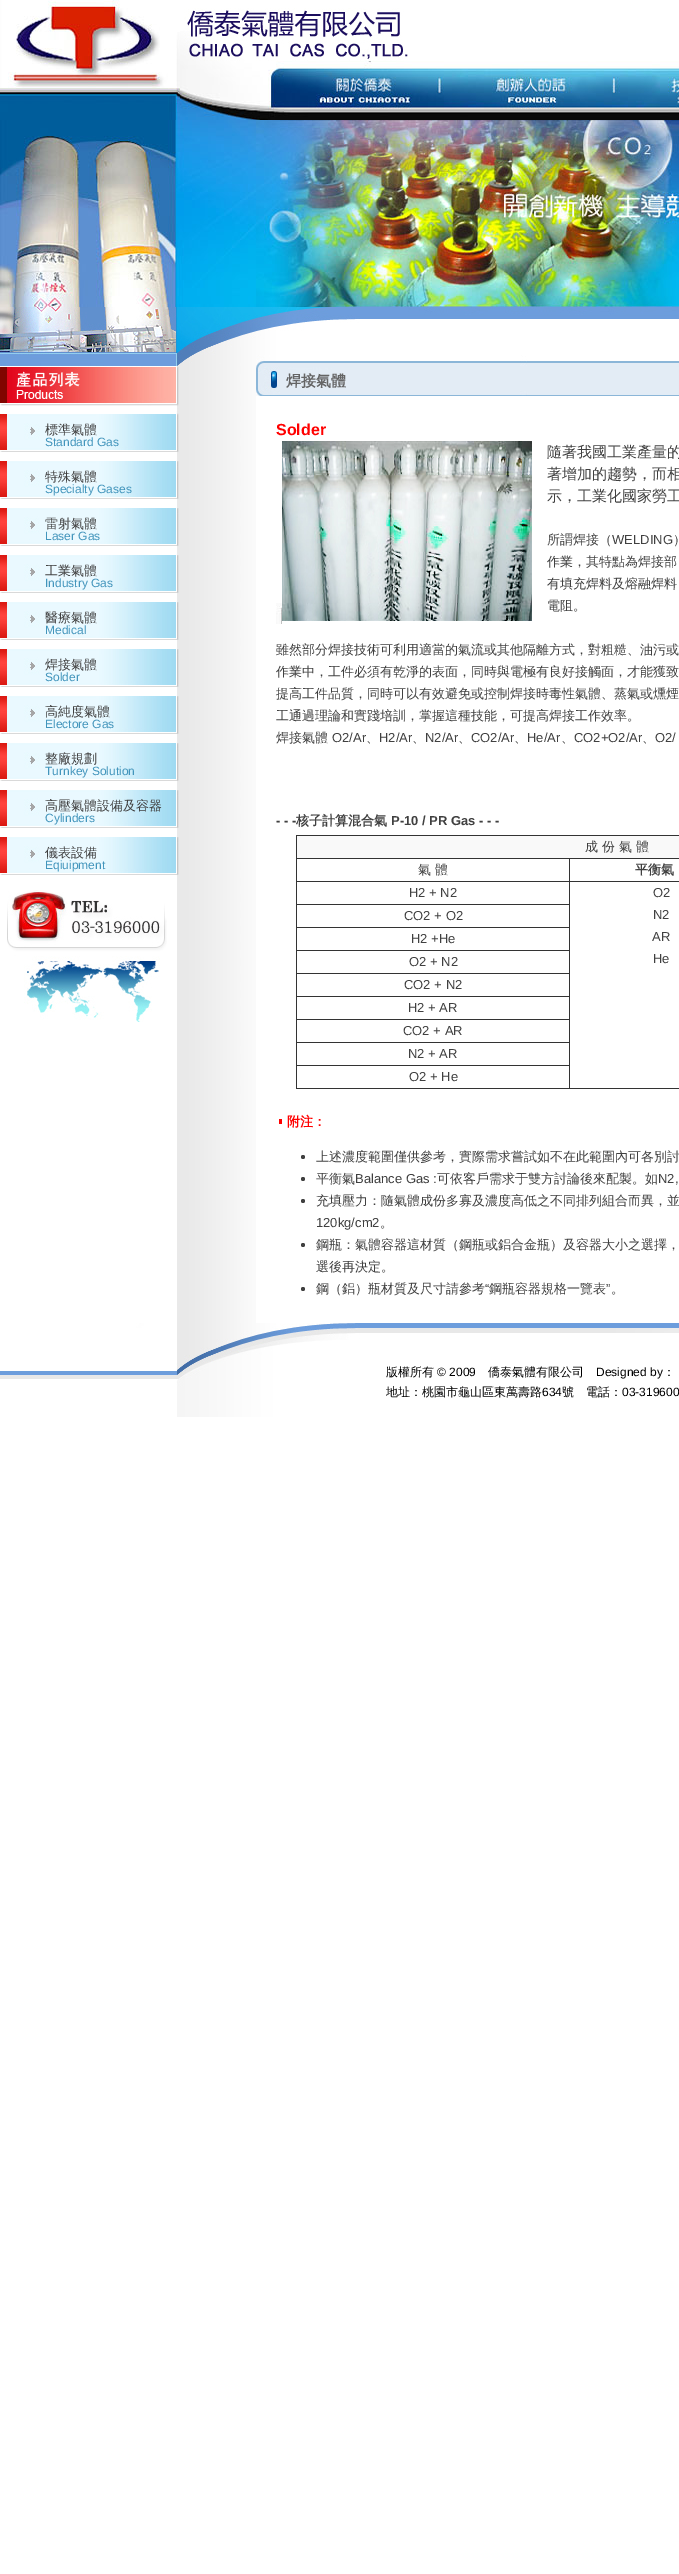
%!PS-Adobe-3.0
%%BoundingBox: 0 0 679 2574
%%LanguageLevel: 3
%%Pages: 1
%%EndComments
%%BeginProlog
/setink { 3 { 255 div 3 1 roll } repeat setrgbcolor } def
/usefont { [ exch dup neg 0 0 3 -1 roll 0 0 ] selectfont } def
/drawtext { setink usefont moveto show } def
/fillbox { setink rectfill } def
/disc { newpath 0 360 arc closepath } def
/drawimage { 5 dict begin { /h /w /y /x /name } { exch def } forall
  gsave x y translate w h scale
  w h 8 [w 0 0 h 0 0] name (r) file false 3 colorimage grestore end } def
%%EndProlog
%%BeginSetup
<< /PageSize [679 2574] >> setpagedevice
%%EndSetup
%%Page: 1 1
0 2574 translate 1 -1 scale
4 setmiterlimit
0 0 679 2574 255 255 255 fillbox
(assets/img1.rgb) 0 0 180 120 drawimage
(assets/img2.rgb) 180 8 228 53 drawimage
(assets/img3.rgb) 180 61 499 59 drawimage
(assets/img4.rgb) 0 120 679 187 drawimage
(assets/img5.rgb) 0 307 679 59 drawimage
(assets/img6.rgb) 177 366 79 957 drawimage
(assets/img7.rgb) 0 366 179 48 drawimage
(assets/img8.rgb) 0 414 179 38 drawimage
(標準氣體) 45 434 /WenQuanYiZenHei-Medium 13 64 64 64 drawtext
(Standard Gas) 45 446 /LiberationSans-Regular 12 66 149 188 drawtext
(assets/img8.rgb) 0 461 179 38 drawimage
(特殊氣體) 45 481 /WenQuanYiZenHei-Medium 13 64 64 64 drawtext
(Specialty Gases) 45 493 /LiberationSans-Regular 12 66 149 188 drawtext
(assets/img8.rgb) 0 508 179 38 drawimage
(雷射氣體) 45 528 /WenQuanYiZenHei-Medium 13 64 64 64 drawtext
(Laser Gas) 45 540 /LiberationSans-Regular 12 66 149 188 drawtext
(assets/img8.rgb) 0 555 179 38 drawimage
(工業氣體) 45 575 /WenQuanYiZenHei-Medium 13 64 64 64 drawtext
(Industry Gas) 45 587 /LiberationSans-Regular 12 66 149 188 drawtext
(assets/img8.rgb) 0 602 179 38 drawimage
(醫療氣體) 45 622 /WenQuanYiZenHei-Medium 13 64 64 64 drawtext
(Medical) 45 634 /LiberationSans-Regular 12 66 149 188 drawtext
(assets/img8.rgb) 0 649 179 38 drawimage
(焊接氣體) 45 669 /WenQuanYiZenHei-Medium 13 64 64 64 drawtext
(Solder) 45 681 /LiberationSans-Regular 12 66 149 188 drawtext
(assets/img8.rgb) 0 696 179 38 drawimage
(高純度氣體) 45 716 /WenQuanYiZenHei-Medium 13 64 64 64 drawtext
(Electore Gas) 45 728 /LiberationSans-Regular 12 66 149 188 drawtext
(assets/img8.rgb) 0 743 179 38 drawimage
(整廠規劃) 45 763 /WenQuanYiZenHei-Medium 13 64 64 64 drawtext
(Turnkey Solution) 45 775 /LiberationSans-Regular 12 66 149 188 drawtext
(assets/img8.rgb) 0 790 179 38 drawimage
(高壓氣體設備及容器) 45 810 /WenQuanYiZenHei-Medium 13 64 64 64 drawtext
(Cylinders) 45 822 /LiberationSans-Regular 12 66 149 188 drawtext
(assets/img8.rgb) 0 837 179 38 drawimage
(儀表設備) 45 857 /WenQuanYiZenHei-Medium 13 64 64 64 drawtext
(Eqiuipment) 45 869 /LiberationSans-Regular 12 66 149 188 drawtext
(assets/img9.rgb) 7 890 160 132 drawimage
(assets/img10.rgb) 256 366 423 30 drawimage
(焊接氣體) 286 386 /WenQuanYiZenHei-Bold 15 101 101 101 drawtext
(Solder) 276 435 /LiberationSans-Bold 16 255 0 0 drawtext
(assets/img12.rgb) 276 603 256 21 drawimage
(assets/img11.rgb) 282 441 250 180 drawimage
(隨著我國工業產量的) 547 457 /WenQuanYiZenHei-Medium 15 64 64 64 drawtext
(著增加的趨勢，而相) 547 479 /WenQuanYiZenHei-Medium 15 64 64 64 drawtext
(示，工業化國家勞工) 547 501 /WenQuanYiZenHei-Medium 15 64 64 64 drawtext
(所謂焊接（) 547 544 /WenQuanYiZenHei-Medium 13 64 64 64 drawtext
(WELDING) 612 544 /LiberationSans-Regular 13 64 64 64 drawtext
(）) 673 544 /WenQuanYiZenHei-Medium 13 64 64 64 drawtext
(作業，其特點為焊接部) 547 566 /WenQuanYiZenHei-Medium 13 64 64 64 drawtext
(有填充焊料及熔融焊料) 547 588 /WenQuanYiZenHei-Medium 13 64 64 64 drawtext
(電阻。) 547 610 /WenQuanYiZenHei-Medium 13 64 64 64 drawtext
(雖然部分焊接技術可利用適當的氣流或其他隔離方式，對粗糙、油污或) 276 654 /WenQuanYiZenHei-Medium 13 64 64 64 drawtext
(作業中，工件必須有乾淨的表面，同時與電極有良好接觸面，才能獲致) 276 676 /WenQuanYiZenHei-Medium 13 64 64 64 drawtext
(提高工件品質，同時可以有效避免或控制焊接時毒性氣體、蒸氣或燻煙) 276 698 /WenQuanYiZenHei-Medium 13 64 64 64 drawtext
(工通過理論和實踐培訓，掌握這種技能，可提高焊接工作效率。) 276 720 /WenQuanYiZenHei-Medium 13 64 64 64 drawtext
(焊接氣體) 276 742 /WenQuanYiZenHei-Medium 13 64 64 64 drawtext
(O2/Ar) 332 742 /LiberationSans-Regular 13 64 64 64 drawtext
(、) 366 742 /WenQuanYiZenHei-Medium 13 64 64 64 drawtext
(H2/Ar) 379 742 /LiberationSans-Regular 13 64 64 64 drawtext
(、) 412 742 /WenQuanYiZenHei-Medium 13 64 64 64 drawtext
(N2/Ar) 425 742 /LiberationSans-Regular 13 64 64 64 drawtext
(、) 458 742 /WenQuanYiZenHei-Medium 13 64 64 64 drawtext
(CO2/Ar) 471 742 /LiberationSans-Regular 13 64 64 64 drawtext
(、) 514 742 /WenQuanYiZenHei-Medium 13 64 64 64 drawtext
(He/Ar) 527 742 /LiberationSans-Regular 13 64 64 64 drawtext
(、) 561 742 /WenQuanYiZenHei-Medium 13 64 64 64 drawtext
(CO2+O2/Ar) 574 742 /LiberationSans-Regular 13 64 64 64 drawtext
(、) 642 742 /WenQuanYiZenHei-Medium 13 64 64 64 drawtext
(O2/) 655 742 /LiberationSans-Regular 13 64 64 64 drawtext
(- - -) 276 825 /LiberationSans-Bold 13 64 64 64 drawtext
(核子計算混合氣) 296 825 /WenQuanYiZenHei-Bold 13 64 64 64 drawtext
(P-10 / PR Gas - - -) 391 825 /LiberationSans-Bold 13 64 64 64 drawtext
296 835 383 254 51 51 51 fillbox
297 836 382 22 249 249 249 fillbox
(成 份 氣 體) 585 851 /WenQuanYiZenHei-Medium 13 64 64 64 drawtext
297 859 272 22 255 255 255 fillbox
(氣 體) 418 874 /WenQuanYiZenHei-Medium 13 64 64 64 drawtext
570 859 109 22 255 255 255 fillbox
(平衡氣) 635 874 /WenQuanYiZenHei-Bold 13 64 64 64 drawtext
297 882 272 22 255 255 255 fillbox
(H2 + N2) 409 897 /LiberationSans-Regular 13 64 64 64 drawtext
570 882 109 206 255 255 255 fillbox
(O2) 653 897 /LiberationSans-Regular 13 64 64 64 drawtext
(N2) 653 919 /LiberationSans-Regular 13 64 64 64 drawtext
(AR) 652 941 /LiberationSans-Regular 13 64 64 64 drawtext
(He) 653 963 /LiberationSans-Regular 13 64 64 64 drawtext
297 905 272 22 255 255 255 fillbox
(CO2 + O2) 404 920 /LiberationSans-Regular 13 64 64 64 drawtext
297 928 272 22 255 255 255 fillbox
(H2 +He) 411 943 /LiberationSans-Regular 13 64 64 64 drawtext
297 951 272 22 255 255 255 fillbox
(O2 + N2) 409 966 /LiberationSans-Regular 13 64 64 64 drawtext
297 974 272 22 255 255 255 fillbox
(CO2 + N2) 404 989 /LiberationSans-Regular 13 64 64 64 drawtext
297 997 272 22 255 255 255 fillbox
(H2 + AR) 408 1012 /LiberationSans-Regular 13 64 64 64 drawtext
297 1020 272 22 255 255 255 fillbox
(CO2 + AR) 403 1035 /LiberationSans-Regular 13 64 64 64 drawtext
297 1043 272 22 255 255 255 fillbox
(N2 + AR) 408 1058 /LiberationSans-Regular 13 64 64 64 drawtext
297 1066 272 22 255 255 255 fillbox
(O2 + He) 409 1081 /LiberationSans-Regular 13 64 64 64 drawtext
279 1119 3 5 255 0 0 fillbox
(附注：) 287 1126 /WenQuanYiZenHei-Bold 13 255 0 0 drawtext
64 64 64 setink
303 1157 2 disc fill
(上述濃度範圍僅供參考，實際需求嘗試如不在此範圍內可各別討) 316 1161 /WenQuanYiZenHei-Medium 13 64 64 64 drawtext
303 1179 2 disc fill
(平衡氣) 316 1183 /WenQuanYiZenHei-Medium 13 64 64 64 drawtext
(Balance Gas :) 355 1183 /LiberationSans-Regular 13 64 64 64 drawtext
(可依客戶需求于雙方討論後來配製。如) 437 1183 /WenQuanYiZenHei-Medium 13 64 64 64 drawtext
(N2,) 658 1183 /LiberationSans-Regular 13 64 64 64 drawtext
303 1201 2 disc fill
(充填壓力：隨氣體成份多寡及濃度高低之不同排列組合而異，並) 316 1205 /WenQuanYiZenHei-Medium 13 64 64 64 drawtext
(120kg/cm2) 316 1227 /LiberationSans-Regular 13 64 64 64 drawtext
(。) 380 1227 /WenQuanYiZenHei-Medium 13 64 64 64 drawtext
303 1245 2 disc fill
(鋼瓶：氣體容器這材質（鋼瓶或鋁合金瓶）及容器大小之選擇，) 316 1249 /WenQuanYiZenHei-Medium 13 64 64 64 drawtext
(選後再決定。) 316 1271 /WenQuanYiZenHei-Medium 13 64 64 64 drawtext
(鋼（鋁）瓶材質及尺寸請參考) 316 1293 /WenQuanYiZenHei-Medium 13 64 64 64 drawtext
(“) 485 1293 /LiberationSans-Regular 13 64 64 64 drawtext
(鋼瓶容器規格一覽表) 489 1293 /WenQuanYiZenHei-Medium 13 64 64 64 drawtext
(”) 606 1293 /LiberationSans-Regular 13 64 64 64 drawtext
303 1289 2 disc fill
(。) 611 1293 /WenQuanYiZenHei-Medium 13 64 64 64 drawtext
(assets/img13.rgb) 0 1323 679 94 drawimage
(版權所有) 386 1376 /WenQuanYiZenHei-Medium 12 0 0 0 drawtext
(© 2009) 437 1376 /LiberationSans-Regular 12 0 0 0 drawtext
(僑泰氣體有限公司) 488 1376 /WenQuanYiZenHei-Medium 12 0 0 0 drawtext
(Designed by) 596 1376 /LiberationSans-Regular 12 0 0 0 drawtext
(：) 663 1376 /WenQuanYiZenHei-Medium 12 0 0 0 drawtext
(地址：桃園市龜山區東萬壽路) 386 1396 /WenQuanYiZenHei-Medium 12 0 0 0 drawtext
(634) 542 1396 /LiberationSans-Regular 12 0 0 0 drawtext
(號　電話：) 562 1396 /WenQuanYiZenHei-Medium 12 0 0 0 drawtext
(03-319600) 622 1396 /LiberationSans-Regular 12 0 0 0 drawtext
showpage
%%EOF
